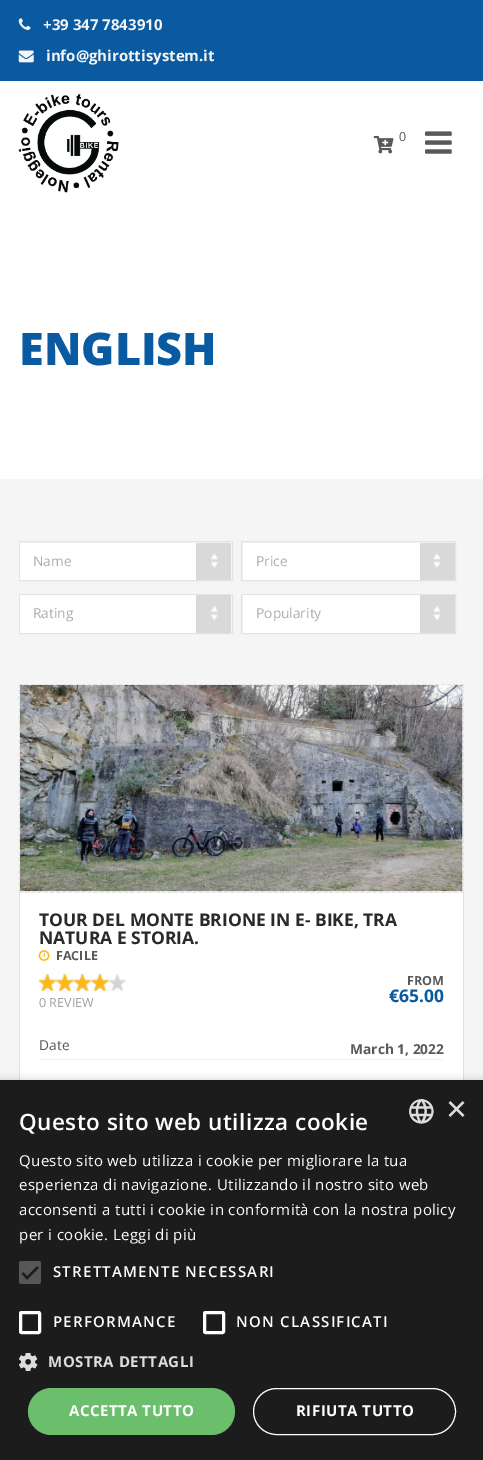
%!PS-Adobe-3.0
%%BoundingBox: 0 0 483 1460
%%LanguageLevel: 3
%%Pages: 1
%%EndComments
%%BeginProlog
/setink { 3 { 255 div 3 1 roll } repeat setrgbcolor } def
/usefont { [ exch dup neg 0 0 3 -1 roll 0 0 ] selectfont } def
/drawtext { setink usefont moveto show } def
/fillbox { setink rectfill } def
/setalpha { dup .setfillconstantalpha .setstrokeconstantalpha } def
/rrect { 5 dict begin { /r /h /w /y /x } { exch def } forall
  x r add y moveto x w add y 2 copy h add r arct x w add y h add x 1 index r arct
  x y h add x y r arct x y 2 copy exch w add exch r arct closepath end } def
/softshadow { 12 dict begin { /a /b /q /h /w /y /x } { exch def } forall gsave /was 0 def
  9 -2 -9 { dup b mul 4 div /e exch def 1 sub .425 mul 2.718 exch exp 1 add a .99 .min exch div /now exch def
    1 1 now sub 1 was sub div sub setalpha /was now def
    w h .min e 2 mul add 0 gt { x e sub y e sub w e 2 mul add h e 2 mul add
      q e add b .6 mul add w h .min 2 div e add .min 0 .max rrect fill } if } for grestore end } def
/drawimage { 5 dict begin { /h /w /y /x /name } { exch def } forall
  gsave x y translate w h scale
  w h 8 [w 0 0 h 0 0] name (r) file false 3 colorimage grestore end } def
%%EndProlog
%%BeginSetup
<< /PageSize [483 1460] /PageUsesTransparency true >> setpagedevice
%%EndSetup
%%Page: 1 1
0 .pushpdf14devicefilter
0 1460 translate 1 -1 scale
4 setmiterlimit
0 0 483 1460 9 90 160 fillbox
(assets/img1.rgb) 18 18 13 12 drawimage
(+39 347 7843910) 43 30 /OpenSans-Bold 15 245 245 245 drawtext
(assets/img2.rgb) 18 50 16 13 drawimage
(info@ghirottisystem.it) 46 61 /OpenSans-Bold 15 245 245 245 drawtext
0 81 483 398 255 255 255 fillbox
(assets/img3.rgb) 18 93 101 100 drawimage
(assets/img4.rgb) 373 135 21 19 drawimage
/OpenSans-Regular 12.5 usefont
89 89 89 setink
399 141 moveto 1 0 (0) ashow
(assets/img5.rgb) 425 131 27 23 drawimage
(ENGLISH) 19 365 /OpenSans-ExtraBold 45 9 90 160 drawtext
0 479 483 601 245 245 245 fillbox
227 227 227 setink
19.5 541.5 213 39 rectstroke
20 543 176 37 255 255 255 fillbox
(Name) 33 566 /OpenSans-Regular 13.75 172 172 172 drawtext
196 543 35 37 217 217 217 fillbox
(assets/img6.rgb) 211 553 7 15 drawimage
227 227 227 setink
241.5 541.5 214 39 rectstroke
243 543 177 37 255 255 255 fillbox
(Price) 256 566 /OpenSans-Regular 13.75 172 172 172 drawtext
420 543 35 37 217 217 217 fillbox
(assets/img7.rgb) 433 553 7 15 drawimage
227 227 227 setink
19.5 594.5 213 39 rectstroke
20 595 176 38 255 255 255 fillbox
(Rating) 33 618 /OpenSans-Regular 13.75 172 172 172 drawtext
196 595 35 38 217 217 217 fillbox
(assets/img8.rgb) 211 606 7 14 drawimage
227 227 227 setink
241.5 594.5 214 39 rectstroke
243 595 177 38 255 255 255 fillbox
(Popularity) 256 618 /OpenSans-Regular 13.75 172 172 172 drawtext
420 595 35 38 217 217 217 fillbox
(assets/img9.rgb) 433 606 7 14 drawimage
gsave
0 684 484 564 rectclip
225 225 225 setink
1.2 setlinewidth
[3.75 2.46] 0 setdash
19 684.5 moveto 464 684.5 lineto stroke
grestore
225 225 225 setink
1.2 setlinewidth
[3.75 2.46] 0 setdash
463 684 moveto 463 892.5 lineto stroke
19 892 moveto 464 892 lineto stroke
19.5 684 moveto 19.5 892.5 lineto stroke
(assets/img10.rgb) 20 685 443 207 drawimage
20 893 443 187 255 255 255 fillbox
463 893 1 187 225 225 225 fillbox
19 893 1 187 225 225 225 fillbox
(TOUR DEL MONTE BRIONE IN E- BIKE, TRA) 39 926 /OpenSans-Bold 17.5 42 42 42 drawtext
(NATURA E STORIA.) 39 944 /OpenSans-Bold 17.5 42 42 42 drawtext
(assets/img11.rgb) 38 950 12 11 drawimage
(FACILE) 56 960 /OpenSans-Bold 12.5 89 89 89 drawtext
(assets/img12.rgb) 38 973 89 19 drawimage
(assets/img13.rgb) 38 973 71 19 drawimage
(0 REVIEW) 39 1007 /OpenSans-Regular 12.5 158 158 158 drawtext
(FROM) 407 985 /OpenSans-Bold 12.5 89 89 89 drawtext
(€65.00) 389 1002 /OpenSans-Bold 17.5 9 90 160 drawtext
39 1059 405 1 237 243 253 fillbox
(Date) 39 1050 /OpenSans-Regular 13.75 89 89 89 drawtext
(March 1, 2022) 350 1054 /OpenSans-Bold 13.75 89 89 89 drawtext
0 0 0 setink
1 1083 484 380 0 5 0.35 softshadow
0 1080 483 380 28 28 28 fillbox
(assets/img14.rgb) 409 1099 25 25 drawimage
(×) 446 1121 /LiberationSans-Regular 36 221 221 221 drawtext
/OpenSans-SemiBold 22.5 usefont
255 255 255 setink
19 1130 moveto 0.5 0 (Questo sito web utilizza cookie) ashow
/OpenSans-Regular 15 usefont
19 1166 moveto 0.38 0 (Questo sito web utilizza i cookie per migliorare la tua) ashow
19 1190 moveto 0.38 0 (esperienza di navigazione. Utilizzando il nostro sito web) ashow
19 1215 moveto 0.38 0 (acconsenti a tutti i cookie in conformità con la nostra policy) ashow
19 1240 moveto 0.38 0 (per i cookie. Leggi di più) ashow
87 87 87 setink
19 1261 22 23 2.5 rrect fill
28 28 28 setink
2.3 setlinewidth
[] 0 setdash
22.5 1273 moveto 27 1278 lineto 38 1267 lineto stroke
/OpenSans-SemiBold 15 usefont
255 255 255 setink
53 1277 moveto 1.25 0 (STRETTAMENTE NECESSARI) ashow
3 setlinewidth
20.5 1312.5 19 20 1 rrect stroke
53 1327 moveto 1.25 0 (PERFORMANCE) ashow
204.5 1312.5 19 20 1 rrect stroke
236 1327 moveto 1.25 0 (NON CLASSIFICATI) ashow
(assets/img15.rgb) 19 1353 19 18 drawimage
/OpenSans-Bold 15 usefont
221 221 221 setink
48 1367 moveto 0.5 0 (MOSTRA DETTAGLI) ashow
107 190 107 setink
28 1388 207 47 23.5 rrect fill
255 255 255 setink
69 1416 moveto 0.5 0 (ACCETTA TUTTO) ashow
1 setlinewidth
253.5 1388.5 202 46 23 rrect stroke
296 1416 moveto 0.5 0 (RIFIUTA TUTTO) ashow
.poppdf14devicefilter showpage
%%EOF
